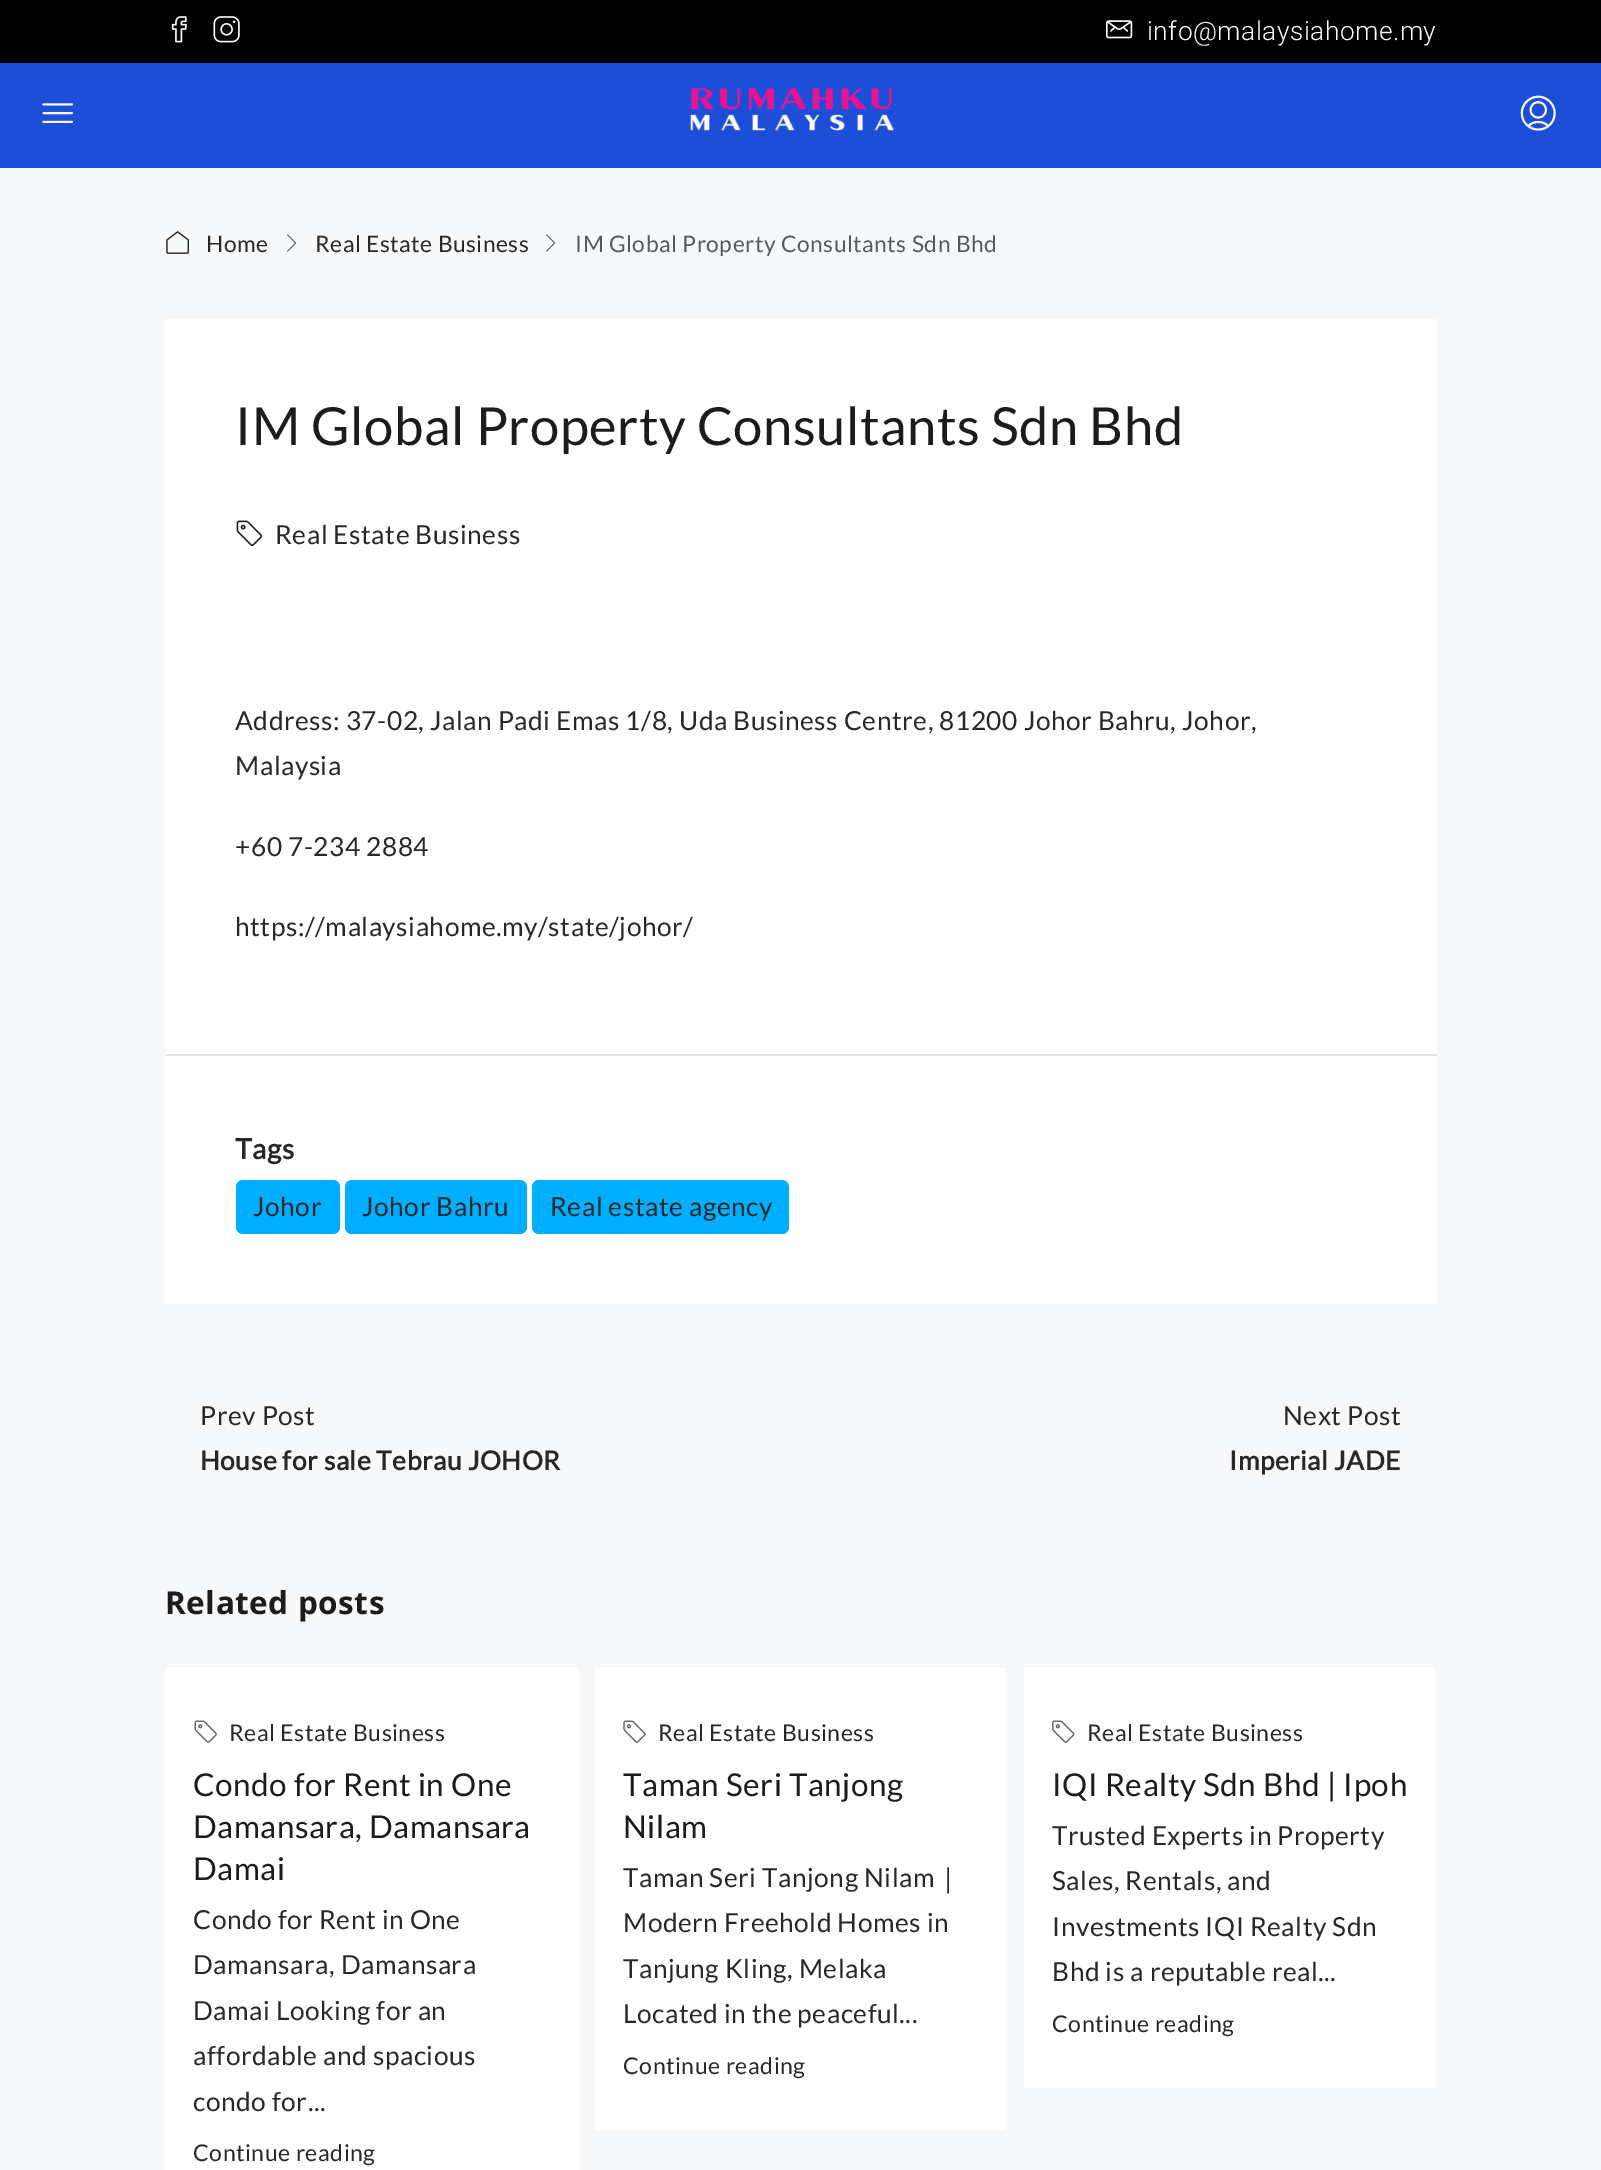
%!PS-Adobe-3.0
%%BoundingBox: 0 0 1601 2170
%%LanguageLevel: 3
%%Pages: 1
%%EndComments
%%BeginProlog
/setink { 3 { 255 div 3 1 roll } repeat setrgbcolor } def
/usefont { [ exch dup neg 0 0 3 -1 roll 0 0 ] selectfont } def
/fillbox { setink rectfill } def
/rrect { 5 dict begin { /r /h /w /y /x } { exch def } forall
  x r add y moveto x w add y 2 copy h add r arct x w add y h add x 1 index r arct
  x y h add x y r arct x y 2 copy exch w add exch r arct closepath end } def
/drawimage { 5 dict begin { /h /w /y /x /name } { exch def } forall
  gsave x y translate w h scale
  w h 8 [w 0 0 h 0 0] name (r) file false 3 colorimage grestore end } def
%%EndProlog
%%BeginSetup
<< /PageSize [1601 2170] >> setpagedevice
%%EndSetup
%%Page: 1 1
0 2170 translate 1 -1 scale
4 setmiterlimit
0 0 1601 2170 247 248 249 fillbox
0 0 1601 63 0 0 0 fillbox
(assets/img1.rgb) 171 16 16 27 drawimage
(assets/img2.rgb) 213 16 27 27 drawimage
(assets/img3.rgb) 1106 20 27 19 drawimage
/Roboto-Light 26.25 usefont
255 255 255 setink
1147 40 moveto 0.53 0 (info@malaysiahome.my) ashow
0 63 1601 105 29 78 216 fillbox
(assets/img4.rgb) 42 103 31 20 drawimage
(assets/img5.rgb) 690 88 204 43 drawimage
(assets/img6.rgb) 1520 95 36 36 drawimage
(assets/img7.rgb) 166 231 23 23 drawimage
/Lato-Regular 22.75 usefont
40 40 41 setink
206 252 moveto 0.53 0 (Home) ashow
(assets/img8.rgb) 287 234 9 18 drawimage
315 252 moveto 0.53 0 (Real Estate Business) ashow
(assets/img8.rgb) 546 234 9 18 drawimage
87 90 93 setink
575 252 moveto 0.53 0 (IM Global Property Consultants Sdn Bhd) ashow
166 319 1271 985 255 255 255 fillbox
/Lato-Regular 52.5 usefont
28 28 29 setink
235 445 moveto 0.53 0 (IM Global Property Consultants Sdn Bhd) ashow
(assets/img9.rgb) 236 520 27 27 drawimage
/Lato-Regular 26.25 usefont
40 40 41 setink
275 544 moveto 0.53 0 (Real Estate Business) ashow
235 730 moveto 0.53 0 (Address: 37-02, Jalan Padi Emas 1/8, Uda Business Centre, 81200 Johor Bahru, Johor,) ashow
235 775 moveto 0.53 0 (Malaysia) ashow
235 856 moveto 0.53 0 (+60 7-234 2884) ashow
235 936 moveto 0.53 0 (https://malaysiahome.my/state/johor/) ashow
166 1054 1271 2 222 226 230 fillbox
/Lato-Bold 28 usefont
40 40 41 setink
235 1159 moveto 0.53 0 (Tags) ashow
0 174 255 setink
236 1180 104 54 7 rrect fill
/Lato-Regular 26.25 usefont
40 40 41 setink
253 1216 moveto 0.53 0 (Johor) ashow
0 174 255 setink
345 1180 182 54 7 rrect fill
40 40 41 setink
362 1216 moveto 0.53 0 (Johor Bahru) ashow
0 174 255 setink
532 1180 257 54 7 rrect fill
40 40 41 setink
550 1216 moveto 0.53 0 (Real estate agency) ashow
200 1425 moveto 0.53 0 (Prev Post) ashow
/Lato-Bold 26.25 usefont
200 1470 moveto 0.53 0 (House for sale Tebrau JOHOR) ashow
/Lato-Regular 26.25 usefont
1283 1425 moveto 0.53 0 (Next Post) ashow
/Lato-Bold 26.25 usefont
1229 1470 moveto 0.53 0 (Imperial JADE) ashow
/OpenSans-Bold 31.5 usefont
28 28 29 setink
165 1614 moveto 0.53 0 (Related posts) ashow
166 1668 412 502 255 255 255 fillbox
(assets/img10.rgb) 194 1720 23 23 drawimage
/Lato-Regular 23 usefont
40 40 41 setink
229 1741 moveto 0.53 0 (Real Estate Business) ashow
/Lato-Regular 31.5 usefont
28 28 29 setink
193 1796 moveto 0.53 0 (Condo for Rent in One) ashow
193 1838 moveto 0.53 0 (Damansara, Damansara) ashow
193 1880 moveto 0.53 0 (Damai) ashow
/Lato-Regular 26.25 usefont
40 40 41 setink
193 1929 moveto 0.53 0 (Condo for Rent in One) ashow
193 1974 moveto 0.53 0 (Damansara, Damansara) ashow
193 2020 moveto 0.53 0 (Damai Looking for an) ashow
193 2065 moveto 0.53 0 (affordable and spacious) ashow
193 2111 moveto 0.53 0 (condo for...) ashow
/Lato-Regular 23 usefont
193 2161 moveto 0.53 0 (Continue reading) ashow
595 1668 411 462 255 255 255 fillbox
(assets/img11.rgb) 623 1720 23 23 drawimage
40 40 41 setink
658 1741 moveto 0.53 0 (Real Estate Business) ashow
/Lato-Regular 31.5 usefont
28 28 29 setink
623 1796 moveto 0.53 0 (Taman Seri Tanjong) ashow
623 1838 moveto 0.53 0 (Nilam) ashow
/Lato-Regular 26.25 usefont
40 40 41 setink
623 1887 moveto 0.53 0 (Taman Seri Tanjong Nilam) ashow
/WenQuanYiZenHei-Medium 26.25 usefont
935 1887 moveto 0.53 0 (｜) ashow
/Lato-Regular 26.25 usefont
623 1932 moveto 0.53 0 (Modern Freehold Homes in) ashow
623 1978 moveto 0.53 0 (Tanjung Kling, Melaka) ashow
623 2023 moveto 0.53 0 (Located in the peaceful...) ashow
/Lato-Regular 23 usefont
623 2074 moveto 0.53 0 (Continue reading) ashow
1024 1668 411 420 255 255 255 fillbox
(assets/img12.rgb) 1052 1720 23 23 drawimage
40 40 41 setink
1087 1741 moveto 0.53 0 (Real Estate Business) ashow
/Lato-Regular 31.5 usefont
28 28 29 setink
1052 1796 moveto 0.53 0 (IQI Realty Sdn Bhd | Ipoh) ashow
/Lato-Regular 26.25 usefont
40 40 41 setink
1052 1845 moveto 0.53 0 (Trusted Experts in Property) ashow
1052 1890 moveto 0.53 0 (Sales, Rentals, and) ashow
1052 1936 moveto 0.53 0 (Investments IQI Realty Sdn) ashow
1052 1981 moveto 0.53 0 (Bhd is a reputable real...) ashow
/Lato-Regular 23 usefont
1052 2032 moveto 0.53 0 (Continue reading) ashow
showpage
%%EOF
